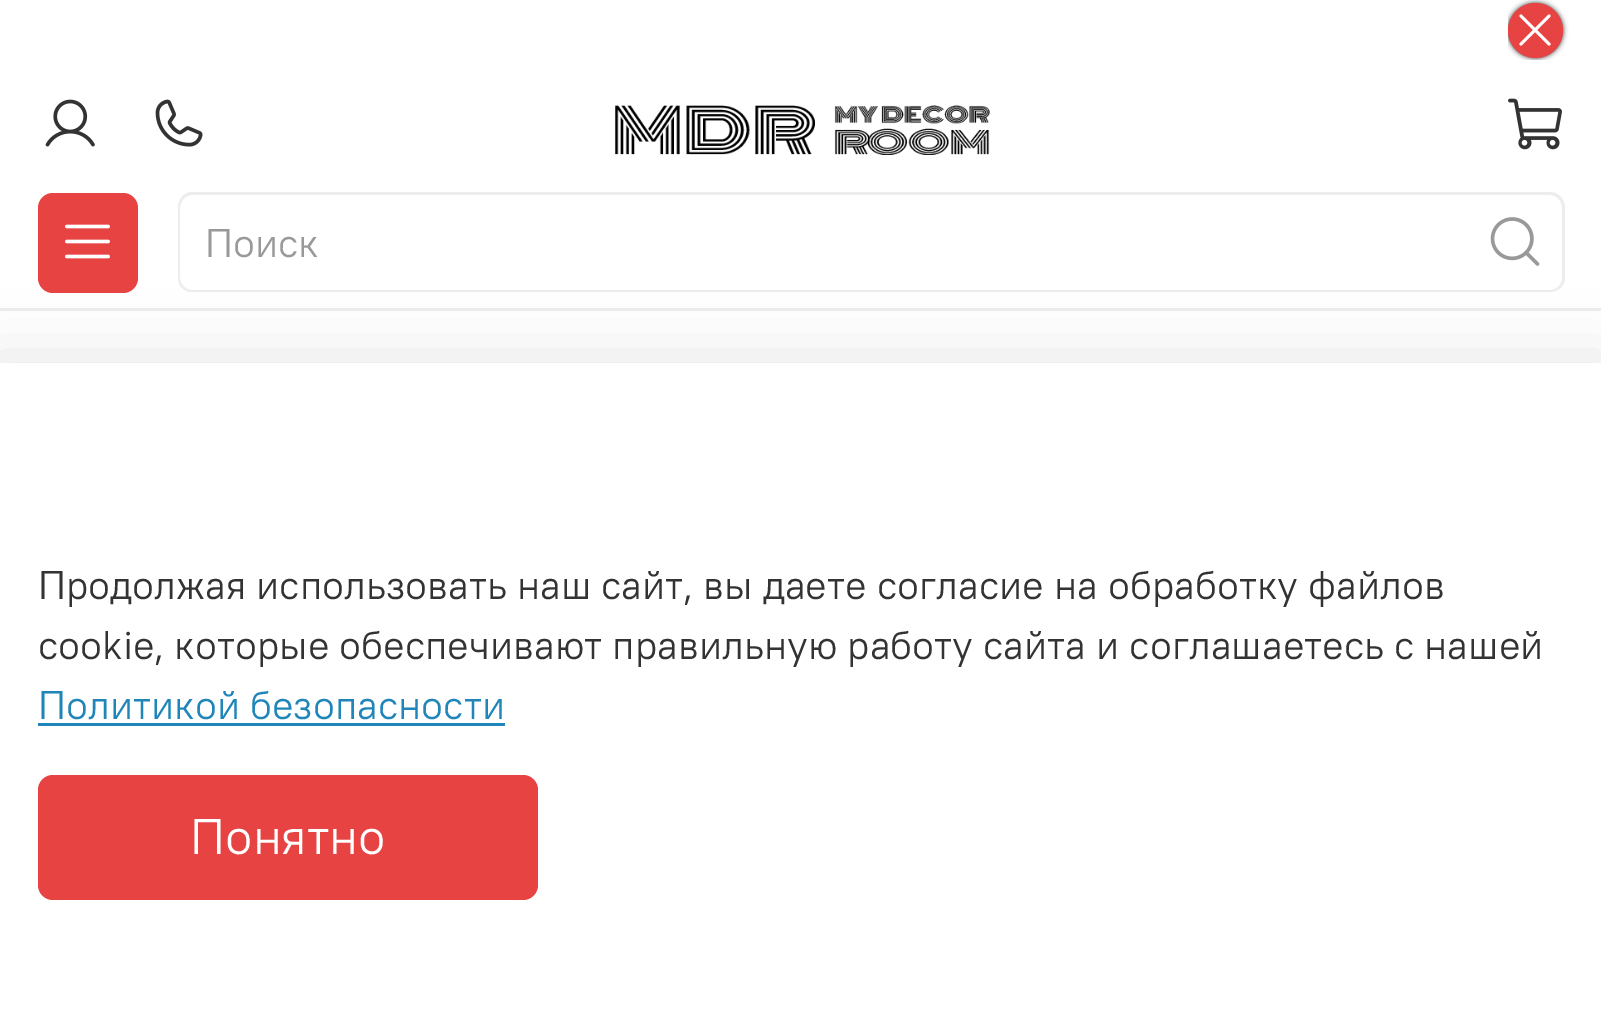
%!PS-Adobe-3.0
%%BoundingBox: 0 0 1601 1026
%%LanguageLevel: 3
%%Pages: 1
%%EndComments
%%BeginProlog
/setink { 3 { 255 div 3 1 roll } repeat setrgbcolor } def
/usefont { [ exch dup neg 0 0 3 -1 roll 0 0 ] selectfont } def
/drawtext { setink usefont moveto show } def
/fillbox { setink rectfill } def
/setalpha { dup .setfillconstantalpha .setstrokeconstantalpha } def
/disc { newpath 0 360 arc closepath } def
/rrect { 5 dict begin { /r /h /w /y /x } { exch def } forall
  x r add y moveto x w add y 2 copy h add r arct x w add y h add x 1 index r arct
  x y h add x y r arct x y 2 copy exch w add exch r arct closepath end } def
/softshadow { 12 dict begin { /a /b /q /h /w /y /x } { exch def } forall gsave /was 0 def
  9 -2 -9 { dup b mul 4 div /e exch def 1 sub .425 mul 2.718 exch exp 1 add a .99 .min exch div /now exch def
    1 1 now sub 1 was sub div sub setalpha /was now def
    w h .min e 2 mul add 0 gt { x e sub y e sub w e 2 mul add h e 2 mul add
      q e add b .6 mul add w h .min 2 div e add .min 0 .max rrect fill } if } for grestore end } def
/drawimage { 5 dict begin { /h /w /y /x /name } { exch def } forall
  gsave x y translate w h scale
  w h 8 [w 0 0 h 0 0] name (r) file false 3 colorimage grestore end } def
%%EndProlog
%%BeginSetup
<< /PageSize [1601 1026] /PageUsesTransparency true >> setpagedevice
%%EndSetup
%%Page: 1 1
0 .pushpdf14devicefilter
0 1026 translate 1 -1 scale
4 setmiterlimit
0 0 1601 1026 255 255 255 fillbox
gsave
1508 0 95 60 rectclip
51 51 51 setink
1508 3 55 55 27.5 2.5 1 softshadow
grestore
231 67 67 setink
1535.5 30.5 27.5 disc fill
(assets/img1.rgb) 1519 14 32 32 drawimage
0 308 1601 3 237 237 237 fillbox
(assets/img2.rgb) 45 99 50 48 drawimage
(assets/img3.rgb) 155 99 48 48 drawimage
(assets/img4.rgb) 615 105 375 50 drawimage
(assets/img5.rgb) 1508 98 54 52 drawimage
231 67 67 setink
38 193 100 100 15 rrect fill
(assets/img6.rgb) 65 224 45 35 drawimage
237 237 237 setink
192 192 moveto 1465 192 lineto 1465 292 lineto 192 292 lineto 184 292 178 286 178 278 curveto 178 208 lineto 178 199 184 192 192 192 curveto closepath 192 195 moveto 1465 195 lineto 1465 290 lineto 192 290 lineto 186 290 180 284 180 278 curveto 180 208 lineto 180 201 186 195 192 195 curveto closepath eofill
(Поиск) 205 257 /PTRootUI-Regular 40 153 153 153 drawtext
237 237 237 setink
1465 192 moveto 1550 192 lineto 1558 192 1565 199 1565 208 curveto 1565 278 lineto 1565 286 1558 292 1550 292 curveto 1465 292 lineto closepath 1465 195 moveto 1550 195 lineto 1557 195 1562 201 1562 208 curveto 1562 278 lineto 1562 284 1557 290 1550 290 curveto 1465 290 lineto closepath eofill
(assets/img7.rgb) 1490 217 50 49 drawimage
0 0 0 setink
-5 355 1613 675 0 29 0.09 softshadow
0 363 1601 663 255 255 255 fillbox
(Продолжая использовать наш сайт, вы даете согласие на обработку файлов) 38 599 /PTRootUI-Regular 40 51 51 51 drawtext
(cookie, которые обеспечивают правильную работу сайта и соглашаетесь с нашей) 38 659 /PTRootUI-Regular 40 51 51 51 drawtext
(Политикой безопасности) 38 719 /PTRootUI-Regular 40 32 134 185 drawtext
38 723 467 3 32 134 185 fillbox
231 67 67 setink
38 775 500 125 15 rrect fill
(Понятно) 190 854 /PTRootUI-Regular 50 255 255 255 drawtext
.poppdf14devicefilter showpage
%%EOF
